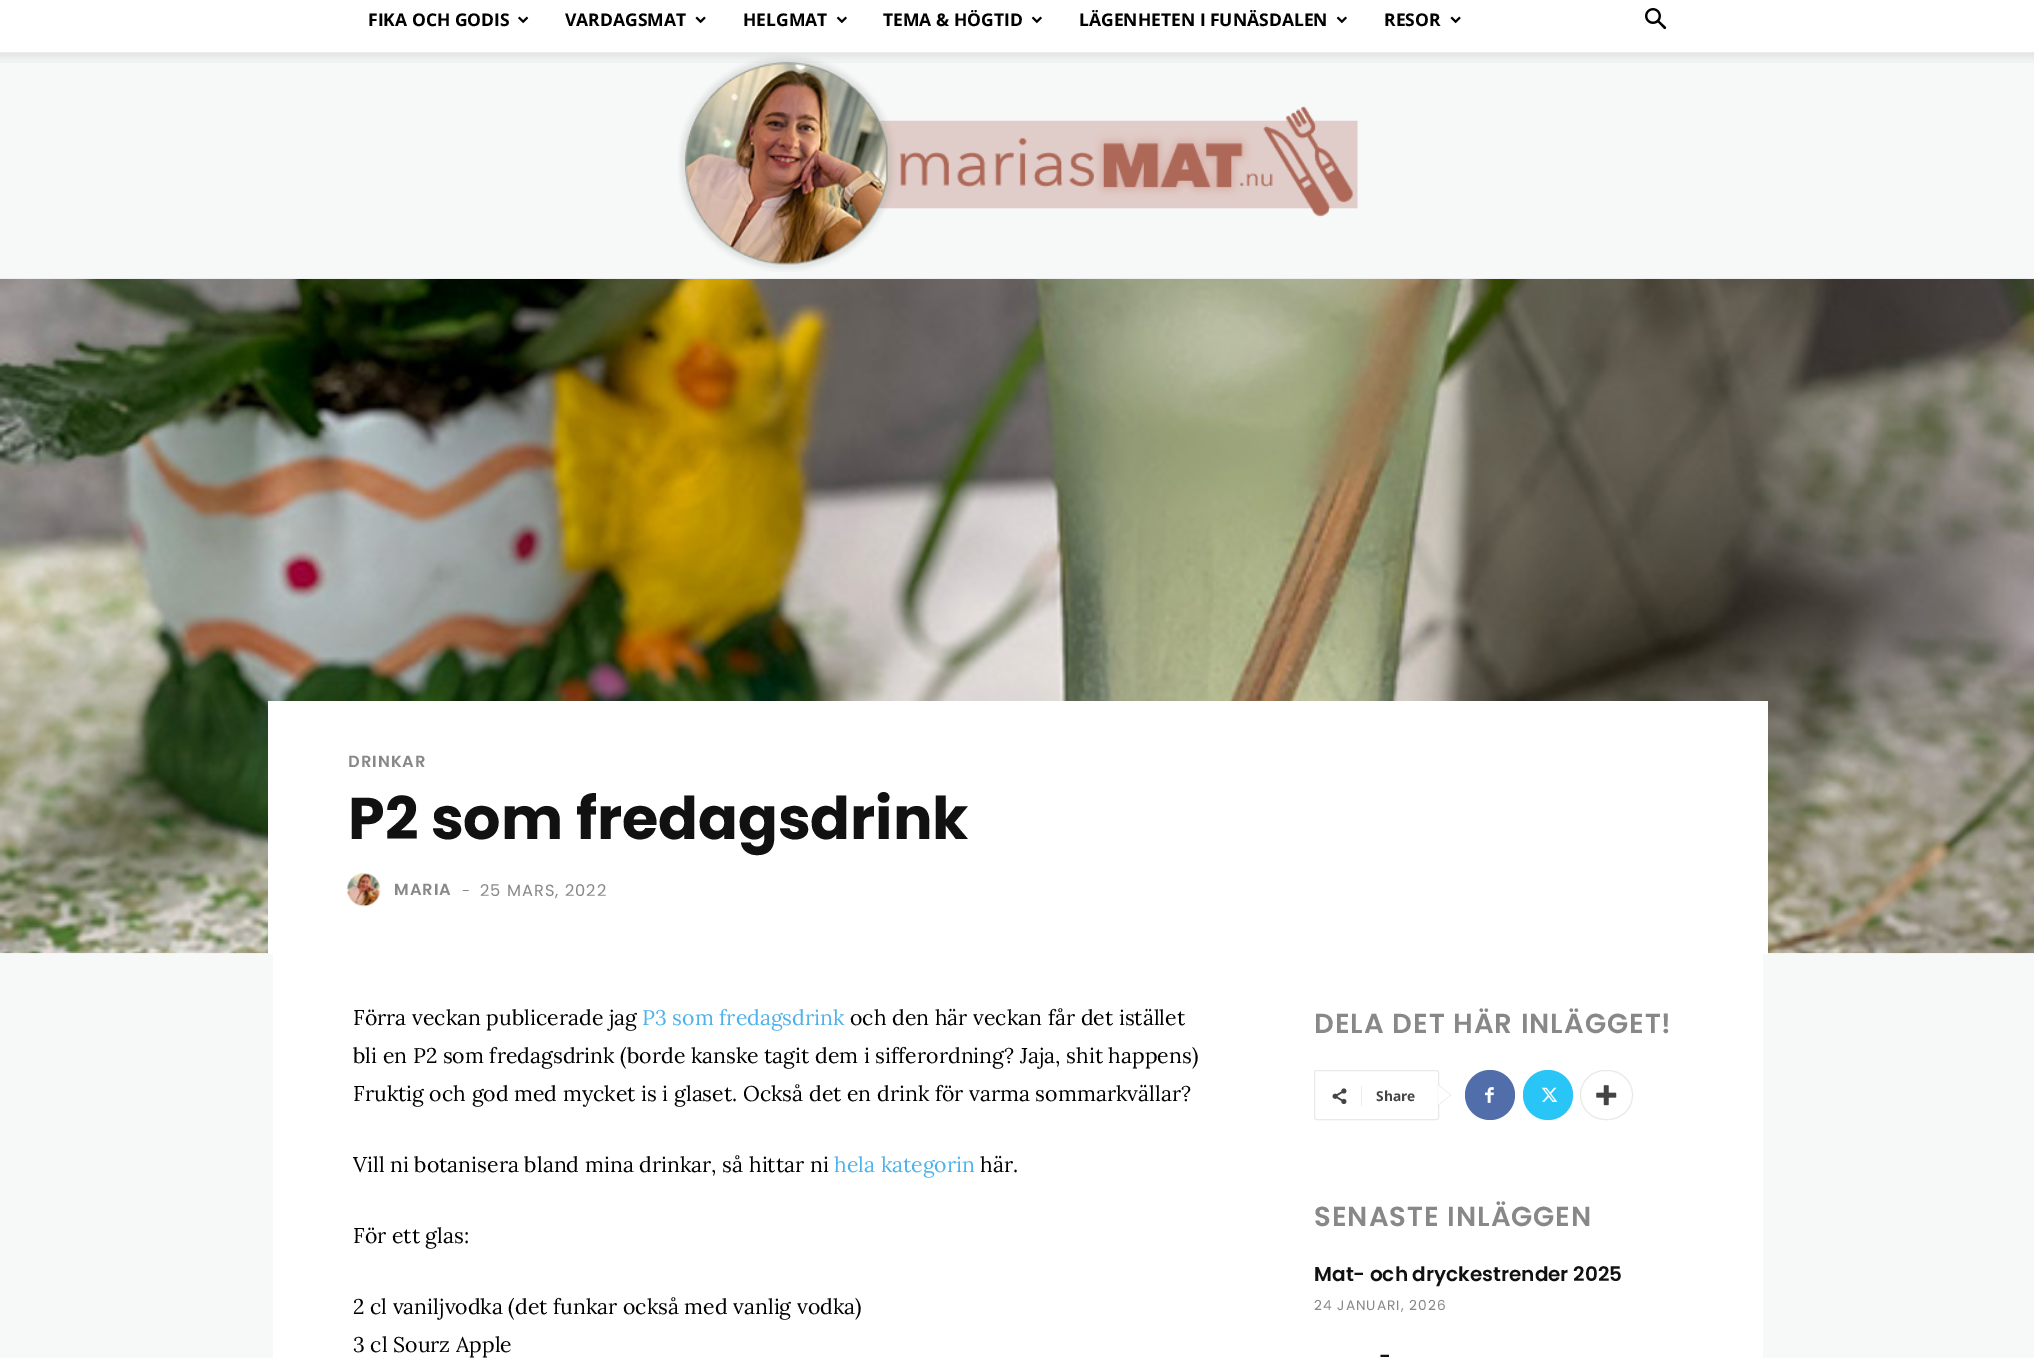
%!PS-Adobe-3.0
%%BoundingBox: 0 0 2034 1358
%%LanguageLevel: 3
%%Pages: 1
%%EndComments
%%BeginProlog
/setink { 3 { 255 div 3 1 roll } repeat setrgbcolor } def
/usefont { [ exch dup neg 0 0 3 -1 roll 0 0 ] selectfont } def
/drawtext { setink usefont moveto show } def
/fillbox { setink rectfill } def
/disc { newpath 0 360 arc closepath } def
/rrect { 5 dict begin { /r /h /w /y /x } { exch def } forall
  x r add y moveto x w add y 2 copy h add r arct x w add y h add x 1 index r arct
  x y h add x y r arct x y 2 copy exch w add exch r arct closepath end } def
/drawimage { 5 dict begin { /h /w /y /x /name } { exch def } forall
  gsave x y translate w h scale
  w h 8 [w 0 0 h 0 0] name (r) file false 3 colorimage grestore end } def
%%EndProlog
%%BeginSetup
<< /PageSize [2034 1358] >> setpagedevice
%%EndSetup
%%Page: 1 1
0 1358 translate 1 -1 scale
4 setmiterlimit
0 0 2034 1358 247 248 248 fillbox
0 0 2034 53 255 255 255 fillbox
(FIKA OCH GODIS) 368 26 /OpenSans-Bold 17.5 0 0 0 drawtext
(assets/img1.rgb) 518 16 11 8 drawimage
(VARDAGSMAT) 565 26 /OpenSans-Bold 17.5 0 0 0 drawtext
(assets/img2.rgb) 695 16 11 8 drawimage
(HELGMAT) 743 26 /OpenSans-Bold 17.5 0 0 0 drawtext
(assets/img3.rgb) 836 16 11 8 drawimage
(TEMA & HÖGTID) 883 26 /OpenSans-Bold 17.5 0 0 0 drawtext
(assets/img3.rgb) 1031 16 11 8 drawimage
(LÄGENHETEN I FUNÄSDALEN) 1079 26 /OpenSans-Bold 17.5 0 0 0 drawtext
(assets/img3.rgb) 1336 16 11 8 drawimage
(RESOR) 1384 26 /OpenSans-Bold 17.5 0 0 0 drawtext
(assets/img2.rgb) 1450 16 11 8 drawimage
(assets/img4.rgb) 1645 8 22 22 drawimage
(assets/img6.rgb) 678 55 680 217 drawimage
(assets/img5.rgb) 0 52 2034 11 drawimage
0 278 2034 1 238 238 238 fillbox
(assets/img7.rgb) 0 279 2034 675 drawimage
268 701 1500 253 255 255 255 fillbox
/Poppins-SemiBold 16.25 usefont
136 136 136 setink
348 767 moveto 1 0 (DRINKAR) ashow
(P2 som fredagsdrink) 348 839 /Poppins-Bold 58.75 17 17 17 drawtext
(assets/img8.rgb) 347 873 34 34 drawimage
/Poppins-SemiBold 16.25 usefont
136 136 136 setink
394 895 moveto 1 0 (MARIA) ashow
/Poppins-Regular 15 usefont
462 896 moveto 1 0 (-) ashow
/Poppins-Regular 16.25 usefont
480 896 moveto 1 0 (25 MARS, 2022) ashow
273 954 1490 404 255 255 255 fillbox
(Förra veckan publicerade jag) 353 1025 /Lora-Regular 21.25 0 0 0 drawtext
(P3 som fredagsdrink) 642 1025 /Lora-Regular 21.25 77 178 236 drawtext
(och den här veckan får det istället) 850 1025 /Lora-Regular 21.25 0 0 0 drawtext
(bli en P2 som fredagsdrink \(borde kanske tagit dem i sifferordning? Jaja, shit happens\)) 353 1063 /Lora-Regular 21.25 0 0 0 drawtext
(Fruktig och god med mycket is i glaset. Också det en drink för varma sommarkvällar?) 353 1101 /Lora-Regular 21.25 0 0 0 drawtext
(Vill ni botanisera bland mina drinkar, så hittar ni) 353 1172 /Lora-Regular 21.25 0 0 0 drawtext
(hela kategorin) 834 1172 /Lora-Regular 21.25 77 178 236 drawtext
(här.) 980 1172 /Lora-Regular 21.25 0 0 0 drawtext
(För ett glas:) 353 1243 /Lora-Regular 21.25 0 0 0 drawtext
(2 cl vaniljvodka \(det funkar också med vanlig vodka\)) 353 1314 /Lora-Regular 21.25 0 0 0 drawtext
(3 cl Sourz Apple) 353 1352 /Lora-Regular 21.25 0 0 0 drawtext
/Poppins-SemiBold 27.5 usefont
136 136 136 setink
1314 1033 moveto 1 0 (DELA DET HÄR INLÄGGET!) ashow
233 233 233 setink
1314.5 1070.5 124 49 2 rrect stroke
1437.5 1106 moveto 1437.5 1084 lineto 1451 1095 lineto closepath fill
(assets/img9.rgb) 1332 1088 15 17 drawimage
1361 1086 1 20 235 235 235 fillbox
(Share) 1376 1101 /OpenSans-Bold 13.75 68 68 68 drawtext
255 255 255 setink
1437.5 1105 moveto 1437.5 1085 lineto 1450 1095 lineto closepath fill
81 110 171 setink
1490 1095 25 disc fill
(assets/img10.rgb) 1485 1087 9 16 drawimage
41 197 246 setink
1548 1095 25 disc fill
(assets/img11.rgb) 1541 1087 17 15 drawimage
233 233 233 setink
1580.5 1070.5 52 49 24.5 rrect stroke
(assets/img12.rgb) 1596 1085 21 21 drawimage
/Poppins-SemiBold 27.5 usefont
136 136 136 setink
1314 1226 moveto 1 0 (SENASTE INLÄGGEN) ashow
(Mat- och dryckestrender 2025) 1314 1281 /Poppins-SemiBold 20 17 17 17 drawtext
/Poppins-Regular 13.75 usefont
136 136 136 setink
1314 1310 moveto 1 0 (24 JANUARI, 2026) ashow
(-) 1379 1363 /Poppins-SemiBold 20 17 17 17 drawtext
showpage
%%EOF
